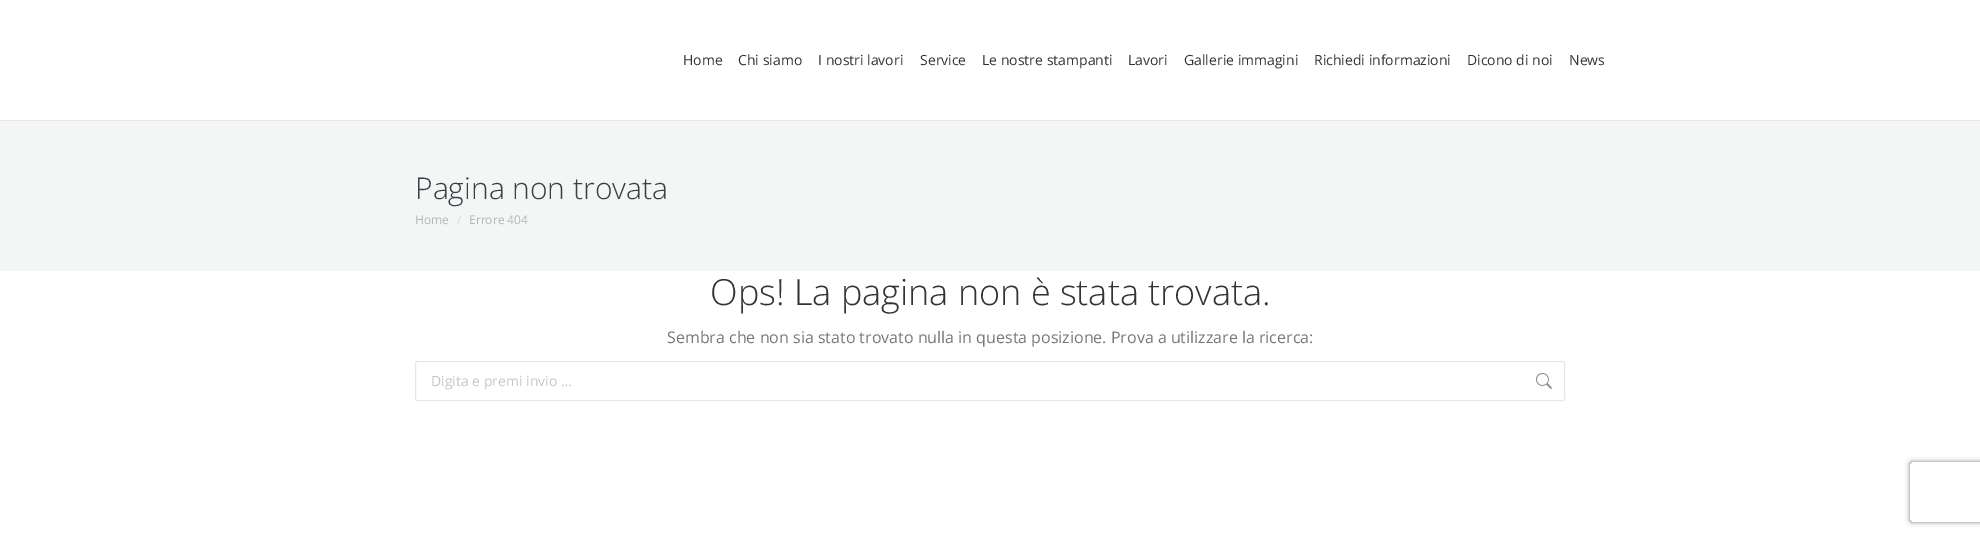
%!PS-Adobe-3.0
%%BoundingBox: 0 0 1980 536
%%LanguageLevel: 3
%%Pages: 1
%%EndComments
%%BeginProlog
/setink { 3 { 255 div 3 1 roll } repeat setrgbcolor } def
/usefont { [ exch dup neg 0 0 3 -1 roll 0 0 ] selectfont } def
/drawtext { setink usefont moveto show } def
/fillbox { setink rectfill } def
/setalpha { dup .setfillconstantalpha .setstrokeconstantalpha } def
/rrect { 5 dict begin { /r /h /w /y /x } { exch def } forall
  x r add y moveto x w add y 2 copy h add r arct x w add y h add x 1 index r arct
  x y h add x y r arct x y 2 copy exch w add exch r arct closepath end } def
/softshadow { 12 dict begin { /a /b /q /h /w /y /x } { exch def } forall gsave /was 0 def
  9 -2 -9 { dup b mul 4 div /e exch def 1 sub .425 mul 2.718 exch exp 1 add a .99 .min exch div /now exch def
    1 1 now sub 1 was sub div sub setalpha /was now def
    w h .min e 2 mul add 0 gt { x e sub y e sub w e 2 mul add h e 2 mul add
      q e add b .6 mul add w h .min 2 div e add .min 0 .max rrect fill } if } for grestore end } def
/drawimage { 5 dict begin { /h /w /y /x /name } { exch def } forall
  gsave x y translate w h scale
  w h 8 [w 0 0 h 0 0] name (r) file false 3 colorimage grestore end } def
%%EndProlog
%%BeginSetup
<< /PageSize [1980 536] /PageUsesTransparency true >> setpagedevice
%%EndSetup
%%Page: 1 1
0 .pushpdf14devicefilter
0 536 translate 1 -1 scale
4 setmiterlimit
0 0 1980 536 255 255 255 fillbox
0 120 1980 1 232 232 232 fillbox
(Home) 683 65 /OpenSans-Regular 14 51 51 51 drawtext
(Chi siamo) 738 65 /OpenSans-Regular 14 51 51 51 drawtext
(I nostri lavori) 818 65 /OpenSans-Regular 14 51 51 51 drawtext
(Service) 920 65 /OpenSans-Regular 14 51 51 51 drawtext
(Le nostre stampanti) 982 65 /OpenSans-Regular 14 51 51 51 drawtext
(Lavori) 1128 65 /OpenSans-Regular 14 51 51 51 drawtext
(Gallerie immagini) 1184 65 /OpenSans-Regular 14 51 51 51 drawtext
(Richiedi informazioni) 1314 65 /OpenSans-Regular 14 51 51 51 drawtext
(Dicono di noi) 1467 65 /OpenSans-Regular 14 51 51 51 drawtext
(News) 1569 65 /OpenSans-Regular 14 51 51 51 drawtext
0 121 1980 150 244 245 245 fillbox
(Pagina non trovata) 415 199 /OpenSans-Light 30 60 62 69 drawtext
(Home) 415 224 /OpenSans-Regular 12 179 181 185 drawtext
(/) 457 224 /OpenSans-Regular 12 212 213 215 drawtext
(Errore 404) 469 224 /OpenSans-Regular 12 179 181 185 drawtext
(Ops! La pagina non è stata trovata.) 710 305 /OpenSans-Light 36 51 51 51 drawtext
(Sembra che non sia stato trovato nulla in questa posizione. Prova a utilizzare la ricerca:) 667 343 /OpenSans-Regular 16 114 119 125 drawtext
231 231 231 setink
415.5 361.5 1149 39 1.5 rrect stroke
(Digita e premi invio …) 431 386 /OpenSans-Regular 14 196 197 201 drawtext
(assets/img1.rgb) 1536 373 16 16 drawimage
gsave
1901 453 moveto 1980 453 lineto 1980 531 lineto 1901 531 lineto closepath 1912 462 moveto 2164 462 lineto 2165 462 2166 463 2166 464 curveto 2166 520 lineto 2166 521 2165 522 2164 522 curveto 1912 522 lineto 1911 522 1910 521 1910 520 curveto 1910 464 lineto 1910 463 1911 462 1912 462 curveto closepath eoclip newpath
128 128 128 setink
1910 462 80 60 2 2.5 1 softshadow
grestore
.poppdf14devicefilter showpage
%%EOF
